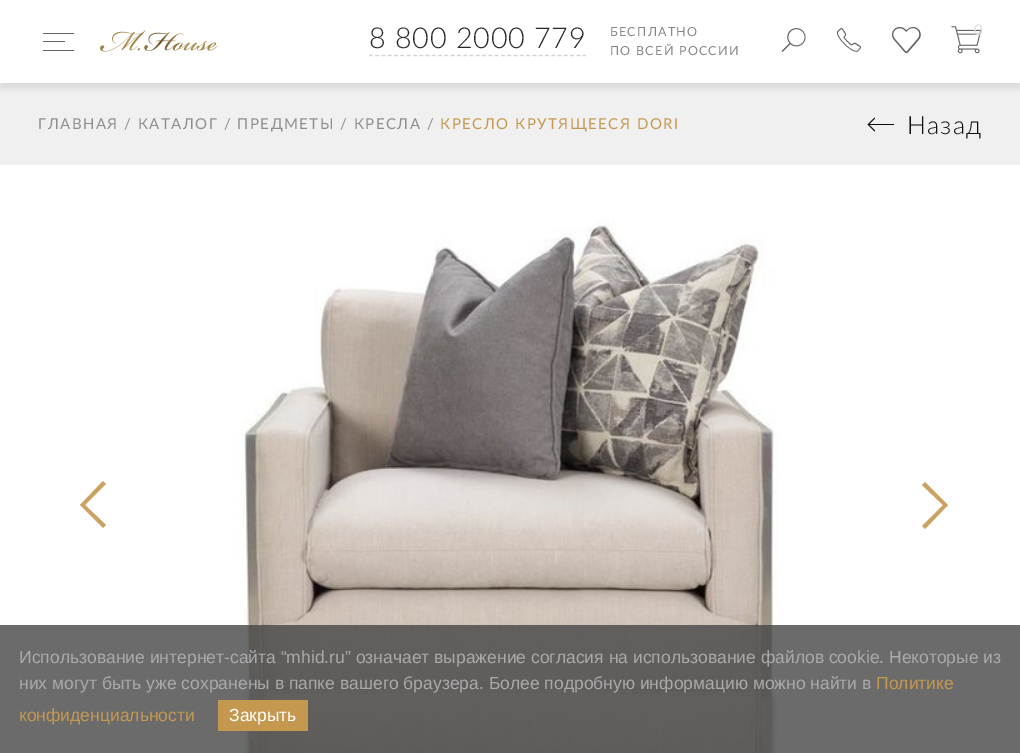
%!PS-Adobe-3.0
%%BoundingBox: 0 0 1020 753
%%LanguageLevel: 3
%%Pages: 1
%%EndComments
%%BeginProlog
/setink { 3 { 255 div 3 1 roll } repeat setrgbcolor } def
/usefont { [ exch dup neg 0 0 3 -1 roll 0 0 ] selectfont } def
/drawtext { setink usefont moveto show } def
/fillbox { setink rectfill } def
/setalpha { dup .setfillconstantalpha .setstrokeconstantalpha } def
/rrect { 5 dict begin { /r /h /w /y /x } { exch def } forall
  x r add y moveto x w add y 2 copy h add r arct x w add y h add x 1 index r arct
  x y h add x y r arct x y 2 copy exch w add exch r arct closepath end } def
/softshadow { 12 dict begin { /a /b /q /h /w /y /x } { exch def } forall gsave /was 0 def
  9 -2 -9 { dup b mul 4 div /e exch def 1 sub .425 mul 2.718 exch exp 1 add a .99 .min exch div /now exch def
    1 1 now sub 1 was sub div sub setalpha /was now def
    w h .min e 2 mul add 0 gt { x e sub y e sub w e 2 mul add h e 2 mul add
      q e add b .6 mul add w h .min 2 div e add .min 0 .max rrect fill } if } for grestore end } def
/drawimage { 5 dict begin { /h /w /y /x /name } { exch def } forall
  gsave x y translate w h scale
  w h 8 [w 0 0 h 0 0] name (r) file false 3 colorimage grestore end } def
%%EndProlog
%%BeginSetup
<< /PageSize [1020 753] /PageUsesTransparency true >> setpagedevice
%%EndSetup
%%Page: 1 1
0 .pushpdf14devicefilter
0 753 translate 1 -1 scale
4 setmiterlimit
0 0 1020 753 240 240 240 fillbox
0 0 0 setink
0 6 1020 83 0 3 0.08 softshadow
0 0 1020 83 255 255 255 fillbox
43 41 22 1 100 100 100 fillbox
43 33 31 1 100 100 100 fillbox
43 50 31 1 100 100 100 fillbox
(assets/img1.rgb) 100 30 118 22 drawimage
212 212 212 setink
1.2 setlinewidth
[3.75 2.54] 0 setdash
369 55.5 moveto 586 55.5 lineto stroke
/Lato-Light 28.75 usefont
40 40 40 setink
369 48 moveto 0.75 0 (8 800 2000 779) ashow
/Lato-Regular 12.5 usefont
135 135 135 setink
610 36 moveto 1.25 0 (БЕСПЛАТНО) ashow
610 55 moveto 1.25 0 (ПО ВСЕЙ РОССИИ) ashow
(assets/img2.rgb) 781 28 25 24 drawimage
(assets/img3.rgb) 836 28 25 24 drawimage
(assets/img4.rgb) 891 26 30 28 drawimage
(assets/img5.rgb) 951 26 31 28 drawimage
(0) 974 35 /Lato-Medium 15 224 224 224 drawtext
/Lato-Regular 15 usefont
142 142 142 setink
38 129 moveto 1.5 0 (ГЛАВНАЯ / КАТАЛОГ / ПРЕДМЕТЫ / КРЕСЛА /) ashow
197 152 80 setink
440 129 moveto 1.5 0 (КРЕСЛО КРУТЯЩЕЕСЯ DORI) ashow
14 14 14 setink
874.5 117.5 moveto 867.5 124.5 lineto 874.5 131.5 lineto 875 130.5 lineto 869.5 125 lineto 894 125 lineto 894 124 lineto 869.5 124 lineto 875 118.5 lineto closepath fill
/Lato-Light 25 usefont
907 134 moveto 1.25 0 (Назад) ashow
0 165 1020 588 255 255 255 fillbox
(assets/img6.rgb) 236 219 542 534 drawimage
203 162 98 setink
103 528 moveto 80 505 lineto 103 481 lineto 106 484 lineto 85 505 lineto 106 525 lineto closepath fill
925 529 moveto 922 526 lineto 943 505 lineto 922 485 lineto 925 482 lineto 948 505 lineto closepath fill
0.8 setalpha
0 625 1020 128 70 70 70 fillbox
1 setalpha
(Использование интернет-сайта “mhid.ru” означает выражение согласия на использование файлов cookie. Некоторые из) 19 663 /LiberationSans-Regular 17.5 170 170 170 drawtext
(них могут быть уже сохранены в папке вашего браузера. Более подробную информацию можно найти в) 19 689 /LiberationSans-Regular 17.5 170 170 170 drawtext
(Политике) 876 689 /LiberationSans-Regular 17.5 197 152 80 drawtext
(конфиденциальности) 19 721 /LiberationSans-Regular 17.5 197 152 80 drawtext
218 700 90 31 197 152 80 fillbox
(Закрыть) 229 721 /LiberationSans-Regular 17.5 255 255 255 drawtext
.poppdf14devicefilter showpage
%%EOF
